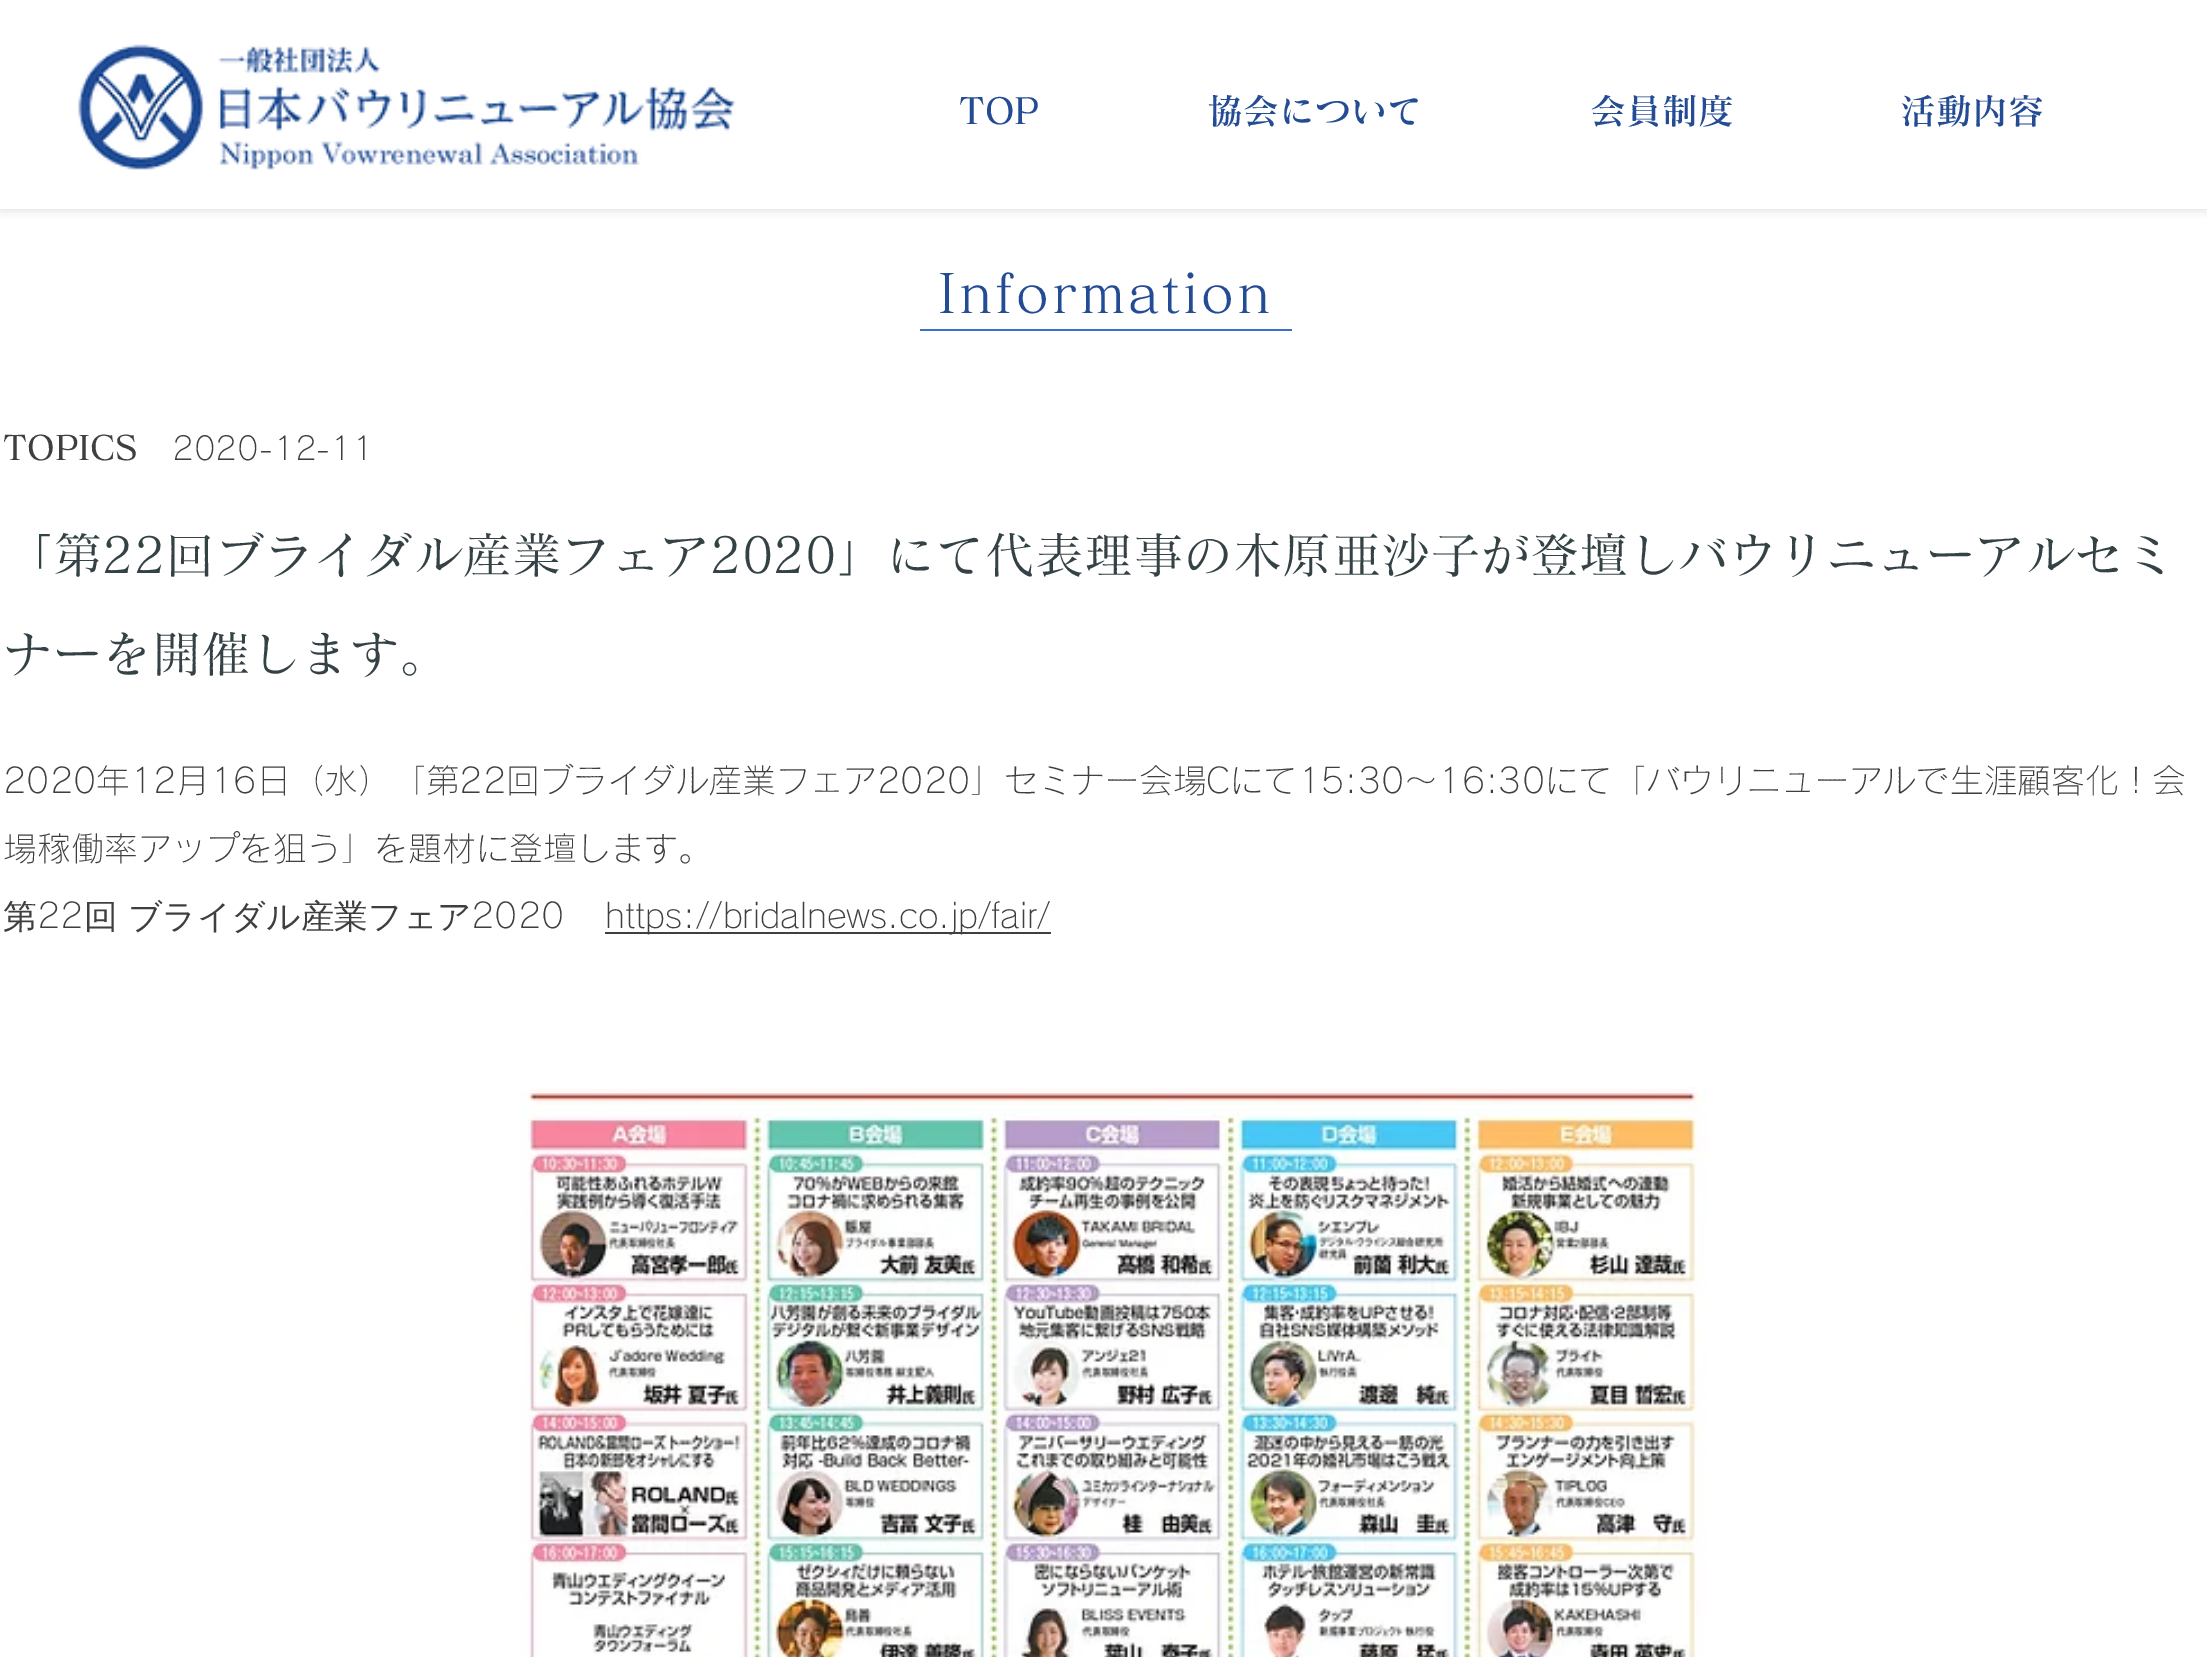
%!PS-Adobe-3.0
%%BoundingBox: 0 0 2207 1657
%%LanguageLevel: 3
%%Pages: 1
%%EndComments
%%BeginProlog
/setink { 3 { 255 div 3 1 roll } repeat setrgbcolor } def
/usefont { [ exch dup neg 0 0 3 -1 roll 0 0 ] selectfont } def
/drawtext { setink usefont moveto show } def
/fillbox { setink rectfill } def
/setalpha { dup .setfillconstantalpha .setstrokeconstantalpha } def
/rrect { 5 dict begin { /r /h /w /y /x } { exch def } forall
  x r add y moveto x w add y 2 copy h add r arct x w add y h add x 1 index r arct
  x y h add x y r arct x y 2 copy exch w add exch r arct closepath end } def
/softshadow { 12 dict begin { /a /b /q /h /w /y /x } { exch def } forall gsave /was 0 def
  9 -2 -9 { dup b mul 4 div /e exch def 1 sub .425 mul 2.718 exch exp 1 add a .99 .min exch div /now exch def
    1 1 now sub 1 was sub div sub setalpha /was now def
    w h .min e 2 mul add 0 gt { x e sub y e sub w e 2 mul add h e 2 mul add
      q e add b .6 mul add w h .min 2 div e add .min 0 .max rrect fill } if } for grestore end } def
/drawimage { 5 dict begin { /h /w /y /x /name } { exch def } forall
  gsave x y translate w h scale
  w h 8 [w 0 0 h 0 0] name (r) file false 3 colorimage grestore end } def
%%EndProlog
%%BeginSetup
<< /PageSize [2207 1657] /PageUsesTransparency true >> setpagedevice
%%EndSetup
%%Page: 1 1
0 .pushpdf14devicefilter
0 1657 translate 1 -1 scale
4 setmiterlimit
0 0 2207 1657 255 255 255 fillbox
gsave
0 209 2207 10 rectclip
188 188 188 setink
0 0 2207 209 0 5.5 0.6 softshadow
grestore
(assets/img1.rgb) 78 44 658 126 drawimage
(TOP) 959 124 /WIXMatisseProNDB-SemiBold 36 36 76 148 drawtext
(協会について) 1207 124 /WIXMatisseProNDB-SemiBold 36 36 76 148 drawtext
(会員制度) 1590 124 /WIXMatisseProNDB-SemiBold 36 36 76 148 drawtext
(活動内容) 1900 124 /WIXMatisseProNDB-SemiBold 36 36 76 148 drawtext
/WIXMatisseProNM-Medium 54 usefont
938 313 moveto 2.75 0 (Information) ashow
920 329 372 2 58 111 207 fillbox
(TOPICS) 3 460 /WIXMatisseProNDB-SemiBold 33.75 63 63 63 drawtext
(2020-12-11) 172 460 /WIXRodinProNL-Light 31.5 63 63 63 drawtext
(「第22回ブライダル産業フェア2020」にて代表理事の木原亜沙子が登壇しバウリニューアルセミ) 3 573 /WIXMatisseProNM-Medium 49.5 52 66 69 drawtext
(ナーを開催します。) 3 672 /WIXMatisseProNM-Medium 49.5 52 66 69 drawtext
(2020年12月16日（水）「第22回ブライダル産業フェア2020」セミナー会場Cにて15:30〜16:30にて「バウリニューアルで生涯顧客化！会) 3 793 /WIXRodinProNL-Light 33.75 63 63 63 drawtext
(場稼働率アップを狙う」を題材に登壇します。) 3 861 /WIXRodinProNL-Light 33.75 63 63 63 drawtext
(第) 3 928 /WenQuanYiZenHei-Medium 33.75 63 63 63 drawtext
(22) 37 928 /WIXRodinProNL-Light 33.75 63 63 63 drawtext
(回 ブライダル産業フェア) 84 928 /WenQuanYiZenHei-Medium 33.75 63 63 63 drawtext
(2020) 471 928 /WIXRodinProNL-Light 33.75 63 63 63 drawtext
605 932 446 2 63 63 63 fillbox
(https://bridalnews.co.jp/fair/) 605 928 /WIXRodinProNL-Light 33.75 63 63 63 drawtext
(assets/img2.rgb) 520 1087 1188 570 drawimage
.poppdf14devicefilter showpage
%%EOF
